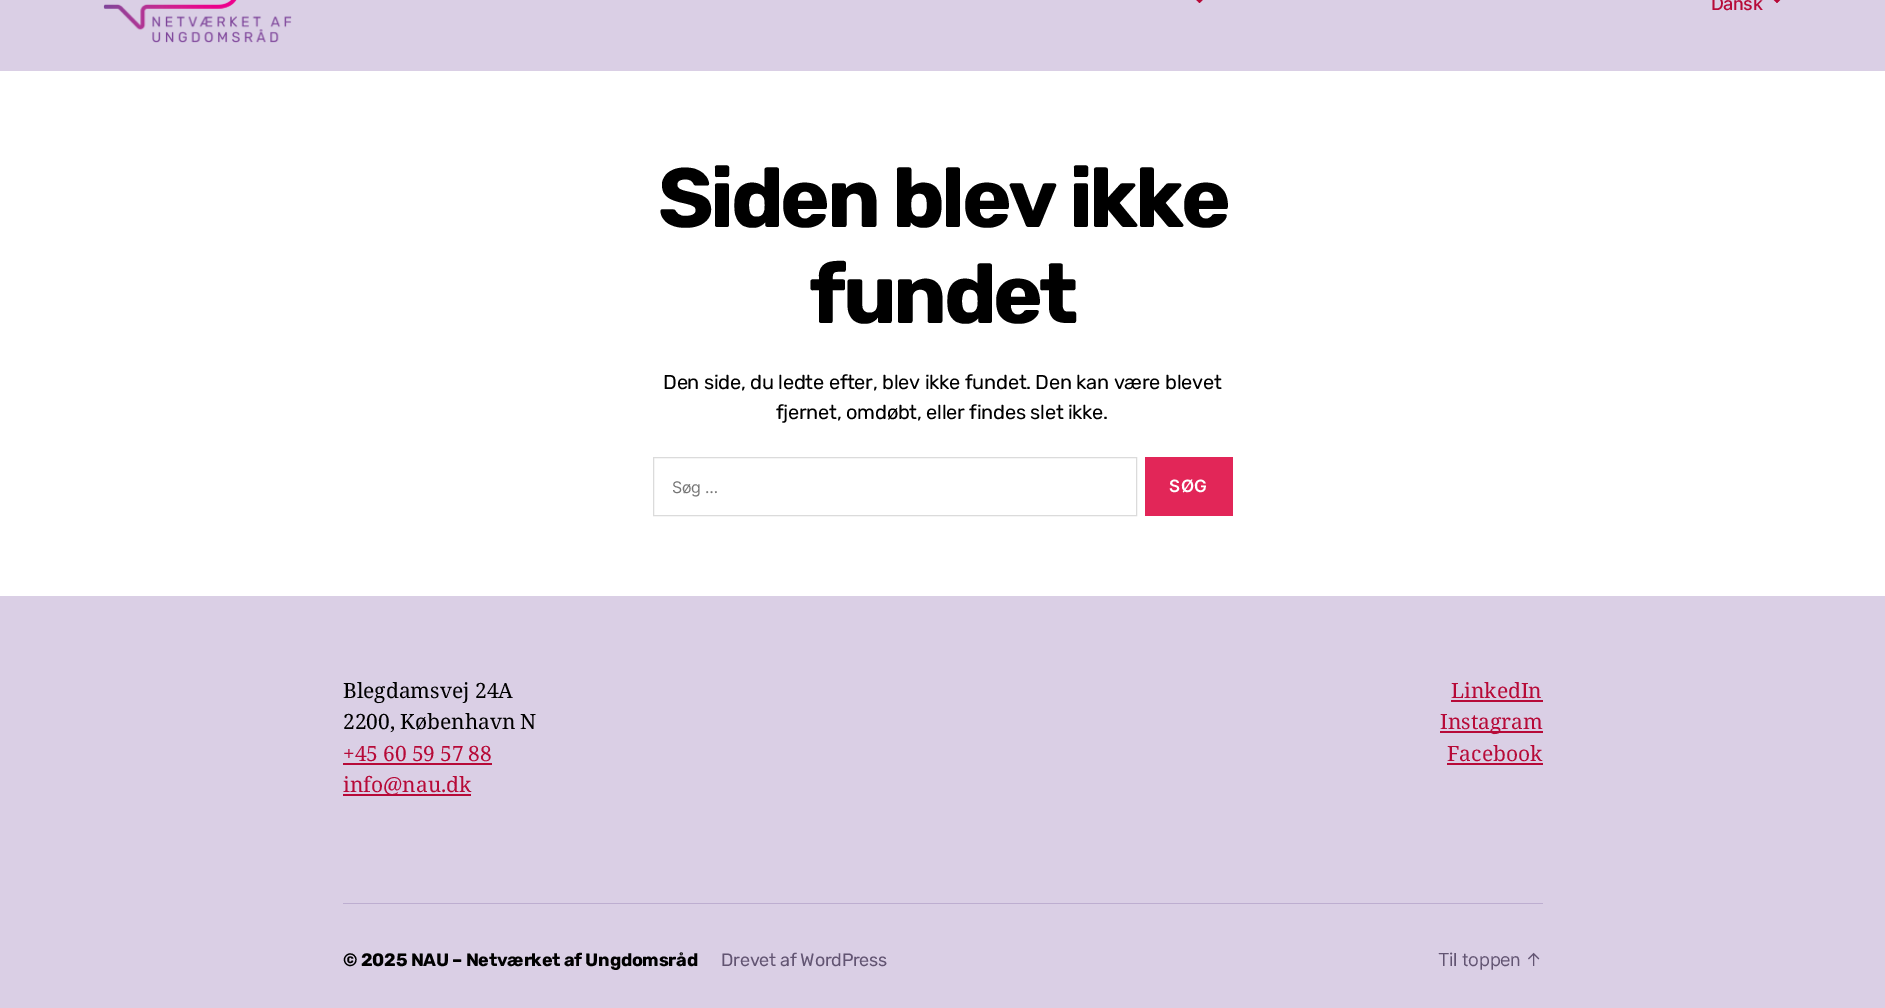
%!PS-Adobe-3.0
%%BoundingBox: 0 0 1885 1008
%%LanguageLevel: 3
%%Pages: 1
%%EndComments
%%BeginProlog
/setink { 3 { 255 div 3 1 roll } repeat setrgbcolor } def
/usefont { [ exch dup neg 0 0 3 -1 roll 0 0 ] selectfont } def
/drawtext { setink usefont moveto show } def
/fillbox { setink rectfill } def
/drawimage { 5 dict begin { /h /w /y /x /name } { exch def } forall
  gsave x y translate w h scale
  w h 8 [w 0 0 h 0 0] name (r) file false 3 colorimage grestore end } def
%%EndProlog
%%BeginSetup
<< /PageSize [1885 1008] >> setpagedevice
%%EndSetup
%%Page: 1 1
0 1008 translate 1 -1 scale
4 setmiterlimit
0 0 1885 1008 255 255 255 fillbox
0 0 1885 71 218 207 229 fillbox
(assets/img1.rgb) 103 0 189 43 drawimage
183 10 56 setink
1193 -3.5 moveto 1194.5 -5 lineto 1201 1.5 lineto 1199.5 3 lineto closepath fill
1198 1.5 moveto 1204.5 -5 lineto 1206 -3.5 lineto 1199.5 3 lineto closepath fill
/Inter-Medium 18 usefont
1711 10 moveto -0.5 0 (Dansk) ashow
1770.5 -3.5 moveto 1772 -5 lineto 1778.5 1.5 lineto 1777 3 lineto closepath fill
1775.5 1.5 moveto 1782 -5 lineto 1783.5 -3.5 lineto 1777 3 lineto closepath fill
/Rubik-Bold 84 usefont
0 0 0 setink
658 227 moveto -3.5 0 (Siden blev ikke) ashow
809 323 moveto -3.5 0 (fundet) ashow
/Rubik-Regular 20 usefont
663 389 moveto -0.27 0 (Den side, du ledte efter, blev ikke fundet. Den kan være blevet) ashow
776 419 moveto -0.27 0 (fjernet, omdøbt, eller findes slet ikke.) ashow
219 219 219 setink
653.5 457.5 483 58 rectstroke
/Inter-Regular 16 usefont
117 117 117 setink
672 493 moveto -0.25 0 (Søg …) ashow
1145 457 88 59 226 38 88 fillbox
/Inter-SemiBold 17 usefont
255 255 255 setink
1169 492 moveto 0.5 0 (SØG) ashow
0 596 1885 412 218 207 229 fillbox
343 903 1200 1 189 174 208 fillbox
(Blegdamsvej 24A) 343 698 /NotoSerif-Regular 21 0 0 0 drawtext
343 729 moveto -0.5 0 32 (2200, København N) widthshow
183 10 56 setink
343 761 moveto -0.5 0 32 (+45 60 59 57 88) widthshow
343 763 149 2 183 10 56 fillbox
343 794 128 2 183 10 56 fillbox
(info@nau.dk) 343 792 /NotoSerif-Regular 21 183 10 56 drawtext
(LinkedIn) 1451 698 /NotoSerif-Regular 21 183 10 56 drawtext
1451 700 92 2 183 10 56 fillbox
1440 731 103 2 183 10 56 fillbox
(Instagram) 1440 729 /NotoSerif-Regular 21 183 10 56 drawtext
(Facebook) 1447 761 /NotoSerif-Regular 21 183 10 56 drawtext
1447 763 96 2 183 10 56 fillbox
/Rubik-Bold 18 usefont
0 0 0 setink
343 966 moveto -0.27 0 (© 2025 NAU – Netværket af Ungdomsråd) ashow
/Rubik-Regular 18 usefont
98 84 114 setink
721 966 moveto -0.27 0 (Drevet af WordPress) ashow
/Inter-Regular 18 usefont
1438 966 moveto -0.27 0 (Til toppen ↑) ashow
showpage
%%EOF
